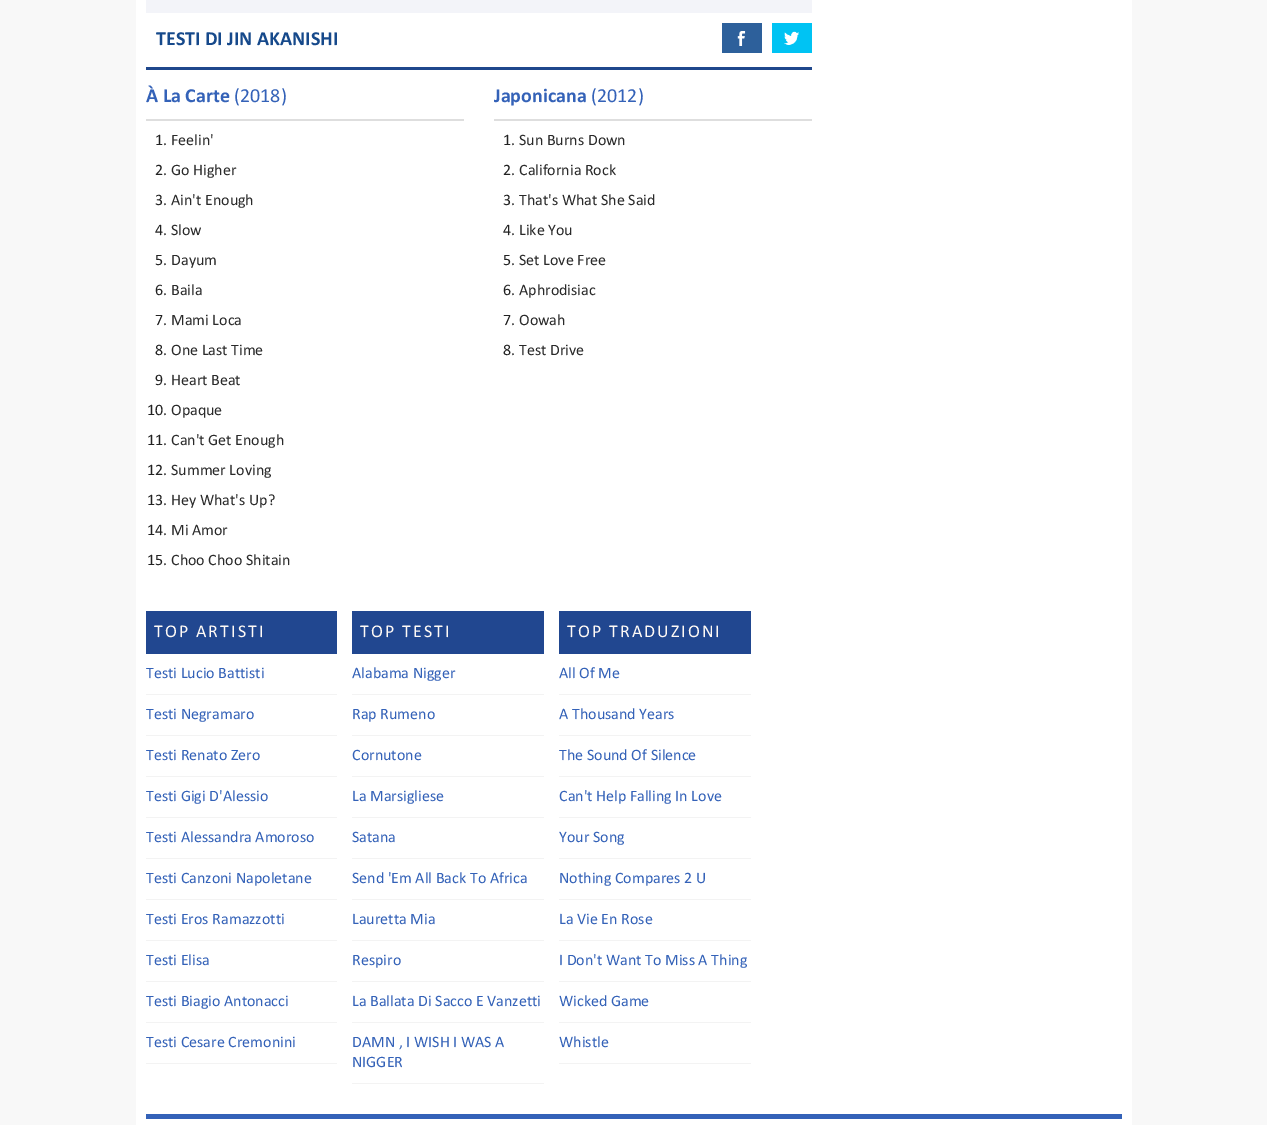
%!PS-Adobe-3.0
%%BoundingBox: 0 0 1267 1125
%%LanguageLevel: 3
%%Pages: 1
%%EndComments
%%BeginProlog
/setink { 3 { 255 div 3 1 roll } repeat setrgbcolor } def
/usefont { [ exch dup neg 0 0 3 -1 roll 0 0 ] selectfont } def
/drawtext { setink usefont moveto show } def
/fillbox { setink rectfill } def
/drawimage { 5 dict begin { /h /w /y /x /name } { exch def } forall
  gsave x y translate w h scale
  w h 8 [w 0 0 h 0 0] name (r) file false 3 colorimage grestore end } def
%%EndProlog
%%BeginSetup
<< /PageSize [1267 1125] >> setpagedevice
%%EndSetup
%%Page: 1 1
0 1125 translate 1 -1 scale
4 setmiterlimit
0 0 1267 1125 248 248 248 fillbox
136 0 996 1125 255 255 255 fillbox
146 1114 976 5 52 98 184 fillbox
146 0 666 13 243 244 249 fillbox
146 67 666 3 31 71 140 fillbox
(TESTI DI JIN AKANISHI) 156 45 /Calibri-Bold 20 22 73 139 drawtext
722 23 40 30 45 96 155 fillbox
(assets/img1.rgb) 737 31 9 15 drawimage
772 23 40 30 0 195 243 fillbox
(assets/img2.rgb) 784 31 15 14 drawimage
146 119 318 2 222 222 222 fillbox
(À La Carte) 146 102 /Calibri-Bold 20 52 98 184 drawtext
(\(2018\)) 234 102 /Calibri-Regular 20 52 98 184 drawtext
(1.) 155 145 /Calibri-Regular 16 34 34 34 drawtext
(Feelin') 171 145 /Calibri-Regular 16 42 42 42 drawtext
(2.) 155 175 /Calibri-Regular 16 34 34 34 drawtext
(Go Higher) 171 175 /Calibri-Regular 16 42 42 42 drawtext
(3.) 155 205 /Calibri-Regular 16 34 34 34 drawtext
(Ain't Enough) 171 205 /Calibri-Regular 16 42 42 42 drawtext
(4.) 155 235 /Calibri-Regular 16 34 34 34 drawtext
(Slow) 171 235 /Calibri-Regular 16 42 42 42 drawtext
(5.) 155 265 /Calibri-Regular 16 34 34 34 drawtext
(Dayum) 171 265 /Calibri-Regular 16 42 42 42 drawtext
(6.) 155 295 /Calibri-Regular 16 34 34 34 drawtext
(Baila) 171 295 /Calibri-Regular 16 42 42 42 drawtext
(7.) 155 325 /Calibri-Regular 16 34 34 34 drawtext
(Mami Loca) 171 325 /Calibri-Regular 16 42 42 42 drawtext
(8.) 155 355 /Calibri-Regular 16 34 34 34 drawtext
(One Last Time) 171 355 /Calibri-Regular 16 42 42 42 drawtext
(9.) 155 385 /Calibri-Regular 16 34 34 34 drawtext
(Heart Beat) 171 385 /Calibri-Regular 16 42 42 42 drawtext
(10.) 147 415 /Calibri-Regular 16 34 34 34 drawtext
(Opaque) 171 415 /Calibri-Regular 16 42 42 42 drawtext
(11.) 147 445 /Calibri-Regular 16 34 34 34 drawtext
(Can't Get Enough) 171 445 /Calibri-Regular 16 42 42 42 drawtext
(12.) 147 475 /Calibri-Regular 16 34 34 34 drawtext
(Summer Loving) 171 475 /Calibri-Regular 16 42 42 42 drawtext
(13.) 147 505 /Calibri-Regular 16 34 34 34 drawtext
(Hey What's Up?) 171 505 /Calibri-Regular 16 42 42 42 drawtext
(14.) 147 535 /Calibri-Regular 16 34 34 34 drawtext
(Mi Amor) 171 535 /Calibri-Regular 16 42 42 42 drawtext
(15.) 147 565 /Calibri-Regular 16 34 34 34 drawtext
(Choo Choo Shitain) 171 565 /Calibri-Regular 16 42 42 42 drawtext
494 119 318 2 222 222 222 fillbox
(Japonicana) 494 102 /Calibri-Bold 20 52 98 184 drawtext
(\(2012\)) 591 102 /Calibri-Regular 20 52 98 184 drawtext
(1.) 503 145 /Calibri-Regular 16 34 34 34 drawtext
(Sun Burns Down) 519 145 /Calibri-Regular 16 42 42 42 drawtext
(2.) 503 175 /Calibri-Regular 16 34 34 34 drawtext
(California Rock) 519 175 /Calibri-Regular 16 42 42 42 drawtext
(3.) 503 205 /Calibri-Regular 16 34 34 34 drawtext
(That's What She Said) 519 205 /Calibri-Regular 16 42 42 42 drawtext
(4.) 503 235 /Calibri-Regular 16 34 34 34 drawtext
(Like You) 519 235 /Calibri-Regular 16 42 42 42 drawtext
(5.) 503 265 /Calibri-Regular 16 34 34 34 drawtext
(Set Love Free) 519 265 /Calibri-Regular 16 42 42 42 drawtext
(6.) 503 295 /Calibri-Regular 16 34 34 34 drawtext
(Aphrodisiac) 519 295 /Calibri-Regular 16 42 42 42 drawtext
(7.) 503 325 /Calibri-Regular 16 34 34 34 drawtext
(Oowah) 519 325 /Calibri-Regular 16 42 42 42 drawtext
(8.) 503 355 /Calibri-Regular 16 34 34 34 drawtext
(Test Drive) 519 355 /Calibri-Regular 16 42 42 42 drawtext
146 611 191 43 33 71 144 fillbox
/Calibri-Regular 18 usefont
255 250 246 setink
154 637 moveto 2 0 (TOP ARTISTI) ashow
146 694 191 1 243 243 243 fillbox
(Testi Lucio Battisti) 146 678 /Calibri-Regular 16 52 98 184 drawtext
146 735 191 1 243 243 243 fillbox
(Testi Negramaro) 146 719 /Calibri-Regular 16 52 98 184 drawtext
146 776 191 1 243 243 243 fillbox
(Testi Renato Zero) 146 760 /Calibri-Regular 16 52 98 184 drawtext
146 817 191 1 243 243 243 fillbox
(Testi Gigi D'Alessio) 146 801 /Calibri-Regular 16 52 98 184 drawtext
146 858 191 1 243 243 243 fillbox
(Testi Alessandra Amoroso) 146 842 /Calibri-Regular 16 52 98 184 drawtext
146 899 191 1 243 243 243 fillbox
(Testi Canzoni Napoletane) 146 883 /Calibri-Regular 16 52 98 184 drawtext
146 940 191 1 243 243 243 fillbox
(Testi Eros Ramazzotti) 146 924 /Calibri-Regular 16 52 98 184 drawtext
146 981 191 1 243 243 243 fillbox
(Testi Elisa) 146 965 /Calibri-Regular 16 52 98 184 drawtext
146 1022 191 1 243 243 243 fillbox
(Testi Biagio Antonacci) 146 1006 /Calibri-Regular 16 52 98 184 drawtext
146 1063 191 1 243 243 243 fillbox
(Testi Cesare Cremonini) 146 1047 /Calibri-Regular 16 52 98 184 drawtext
352 611 192 43 33 71 144 fillbox
/Calibri-Regular 18 usefont
255 250 246 setink
360 637 moveto 2 0 (TOP TESTI) ashow
352 694 192 1 243 243 243 fillbox
(Alabama Nigger) 352 678 /Calibri-Regular 16 52 98 184 drawtext
352 735 192 1 243 243 243 fillbox
(Rap Rumeno) 352 719 /Calibri-Regular 16 52 98 184 drawtext
352 776 192 1 243 243 243 fillbox
(Cornutone) 352 760 /Calibri-Regular 16 52 98 184 drawtext
352 817 192 1 243 243 243 fillbox
(La Marsigliese) 352 801 /Calibri-Regular 16 52 98 184 drawtext
352 858 192 1 243 243 243 fillbox
(Satana) 352 842 /Calibri-Regular 16 52 98 184 drawtext
352 899 192 1 243 243 243 fillbox
(Send 'Em All Back To Africa) 352 883 /Calibri-Regular 16 52 98 184 drawtext
352 940 192 1 243 243 243 fillbox
(Lauretta Mia) 352 924 /Calibri-Regular 16 52 98 184 drawtext
352 981 192 1 243 243 243 fillbox
(Respiro) 352 965 /Calibri-Regular 16 52 98 184 drawtext
352 1022 192 1 243 243 243 fillbox
(La Ballata Di Sacco E Vanzetti) 352 1006 /Calibri-Regular 16 52 98 184 drawtext
352 1083 192 1 243 243 243 fillbox
(DAMN , I WISH I WAS A) 352 1047 /Calibri-Regular 16 52 98 184 drawtext
(NIGGER) 352 1067 /Calibri-Regular 16 52 98 184 drawtext
559 611 192 43 33 71 144 fillbox
/Calibri-Regular 18 usefont
255 250 246 setink
567 637 moveto 2 0 (TOP TRADUZIONI) ashow
559 694 192 1 243 243 243 fillbox
(All Of Me) 559 678 /Calibri-Regular 16 52 98 184 drawtext
559 735 192 1 243 243 243 fillbox
(A Thousand Years) 559 719 /Calibri-Regular 16 52 98 184 drawtext
559 776 192 1 243 243 243 fillbox
(The Sound Of Silence) 559 760 /Calibri-Regular 16 52 98 184 drawtext
559 817 192 1 243 243 243 fillbox
(Can't Help Falling In Love) 559 801 /Calibri-Regular 16 52 98 184 drawtext
559 858 192 1 243 243 243 fillbox
(Your Song) 559 842 /Calibri-Regular 16 52 98 184 drawtext
559 899 192 1 243 243 243 fillbox
(Nothing Compares 2 U) 559 883 /Calibri-Regular 16 52 98 184 drawtext
559 940 192 1 243 243 243 fillbox
(La Vie En Rose) 559 924 /Calibri-Regular 16 52 98 184 drawtext
559 981 192 1 243 243 243 fillbox
(I Don't Want To Miss A Thing) 559 965 /Calibri-Regular 16 52 98 184 drawtext
559 1022 192 1 243 243 243 fillbox
(Wicked Game) 559 1006 /Calibri-Regular 16 52 98 184 drawtext
559 1063 192 1 243 243 243 fillbox
(Whistle) 559 1047 /Calibri-Regular 16 52 98 184 drawtext
showpage
%%EOF
